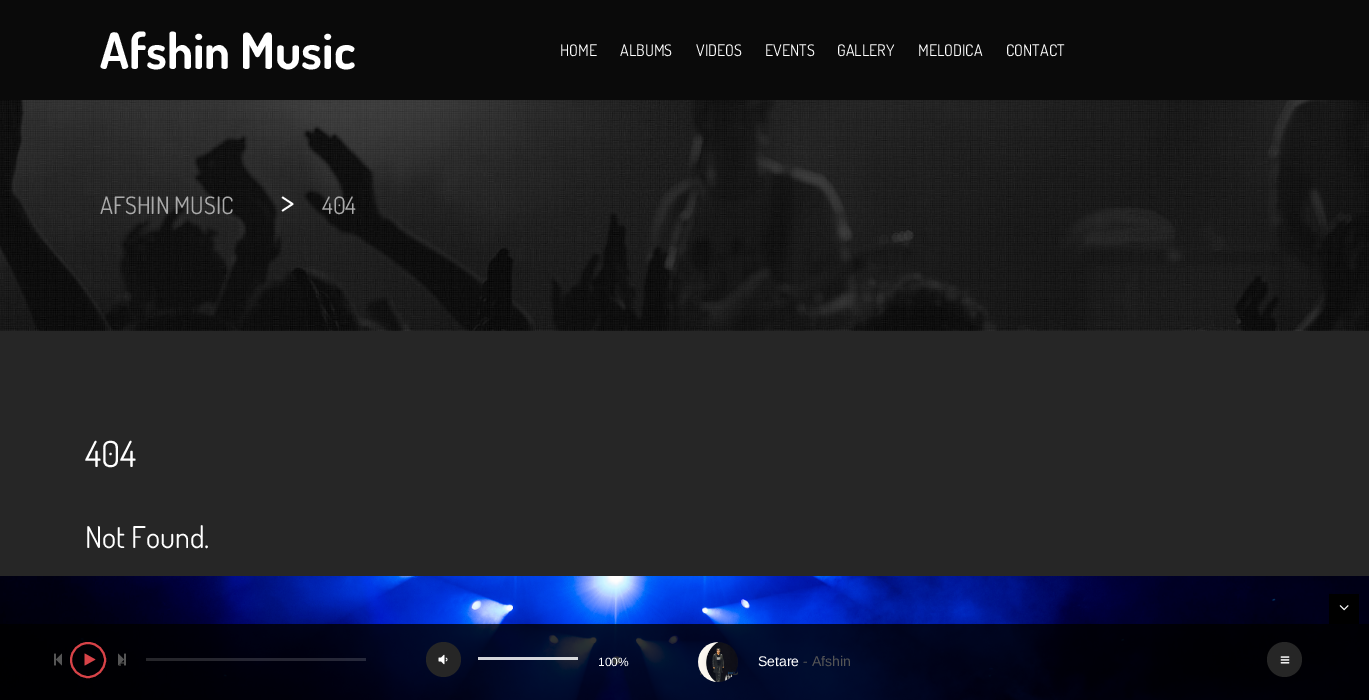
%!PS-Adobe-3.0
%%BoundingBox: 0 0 1369 700
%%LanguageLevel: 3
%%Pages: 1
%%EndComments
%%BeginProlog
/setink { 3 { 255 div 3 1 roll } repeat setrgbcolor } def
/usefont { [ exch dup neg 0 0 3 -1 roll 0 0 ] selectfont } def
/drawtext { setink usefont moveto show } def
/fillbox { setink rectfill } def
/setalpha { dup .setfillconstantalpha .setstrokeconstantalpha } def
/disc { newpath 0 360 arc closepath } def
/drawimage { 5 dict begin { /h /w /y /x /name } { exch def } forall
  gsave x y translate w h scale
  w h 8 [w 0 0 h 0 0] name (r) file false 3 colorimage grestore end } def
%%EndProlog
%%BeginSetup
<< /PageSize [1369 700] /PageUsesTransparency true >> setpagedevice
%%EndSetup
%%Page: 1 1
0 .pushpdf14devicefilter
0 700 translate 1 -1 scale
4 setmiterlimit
0 0 1369 700 38 38 38 fillbox
0 0 1369 100 10 10 10 fillbox
(Afshin Music) 100 69 /Dosis-Bold 50 255 255 255 drawtext
(HOME) 560 56 /Dosis-Regular 16 255 255 255 drawtext
(ALBUMS) 620 56 /Dosis-Regular 16 255 255 255 drawtext
(VIDEOS) 696 56 /Dosis-Regular 16 255 255 255 drawtext
(EVENTS) 765 56 /Dosis-Regular 16 255 255 255 drawtext
(GALLERY) 837 56 /Dosis-Regular 16 255 255 255 drawtext
(MELODICA) 918 56 /Dosis-Regular 16 255 255 255 drawtext
(CONTACT) 1006 56 /Dosis-Regular 16 255 255 255 drawtext
(assets/img1.rgb) 0 100 1369 231 drawimage
(AFSHIN MUSIC) 100 214 /Dosis-Regular 24 170 170 170 drawtext
(>) 280 214 /Dosis-Regular 36 255 255 255 drawtext
(404) 322 214 /Dosis-Regular 24 170 170 170 drawtext
(404) 85 467 /Dosis-Regular 36 255 255 255 drawtext
(Not Found.) 85 548 /Dosis-Regular 30 255 255 255 drawtext
(assets/img2.rgb) 0 576 1369 124 drawimage
0.8 setalpha
0 624 1369 76 0 0 0 fillbox
1 setalpha
1329 594 30 30 0 0 0 fillbox
(assets/img3.rgb) 1339 605 10 6 drawimage
216 67 72 setink
2 setlinewidth
88 660 17 disc stroke
(assets/img4.rgb) 84 653 12 13 drawimage
38 38 38 setink
443.5 659.5 17.5 disc fill
(assets/img5.rgb) 438 654 10 11 drawimage
1284.5 659.5 17.5 disc fill
(assets/img6.rgb) 1280 656 10 8 drawimage
(assets/img7.rgb) 54 653 8 13 drawimage
(assets/img8.rgb) 118 653 8 13 drawimage
0.15 setalpha
146 658 220 3 255 255 255 fillbox
478 657 100 3 255 255 255 fillbox
0.8 setalpha
478 657 100 3 255 255 255 fillbox
1 setalpha
(100%) 598 666 /LiberationSans-Regular 12 255 255 255 drawtext
(assets/img9.rgb) 698 642 40 40 drawimage
(Setare) 758 666 /LiberationSans-Regular 14 255 255 255 drawtext
(- Afshin) 803 666 /LiberationSans-Regular 14 85 85 85 drawtext
.poppdf14devicefilter showpage
%%EOF
